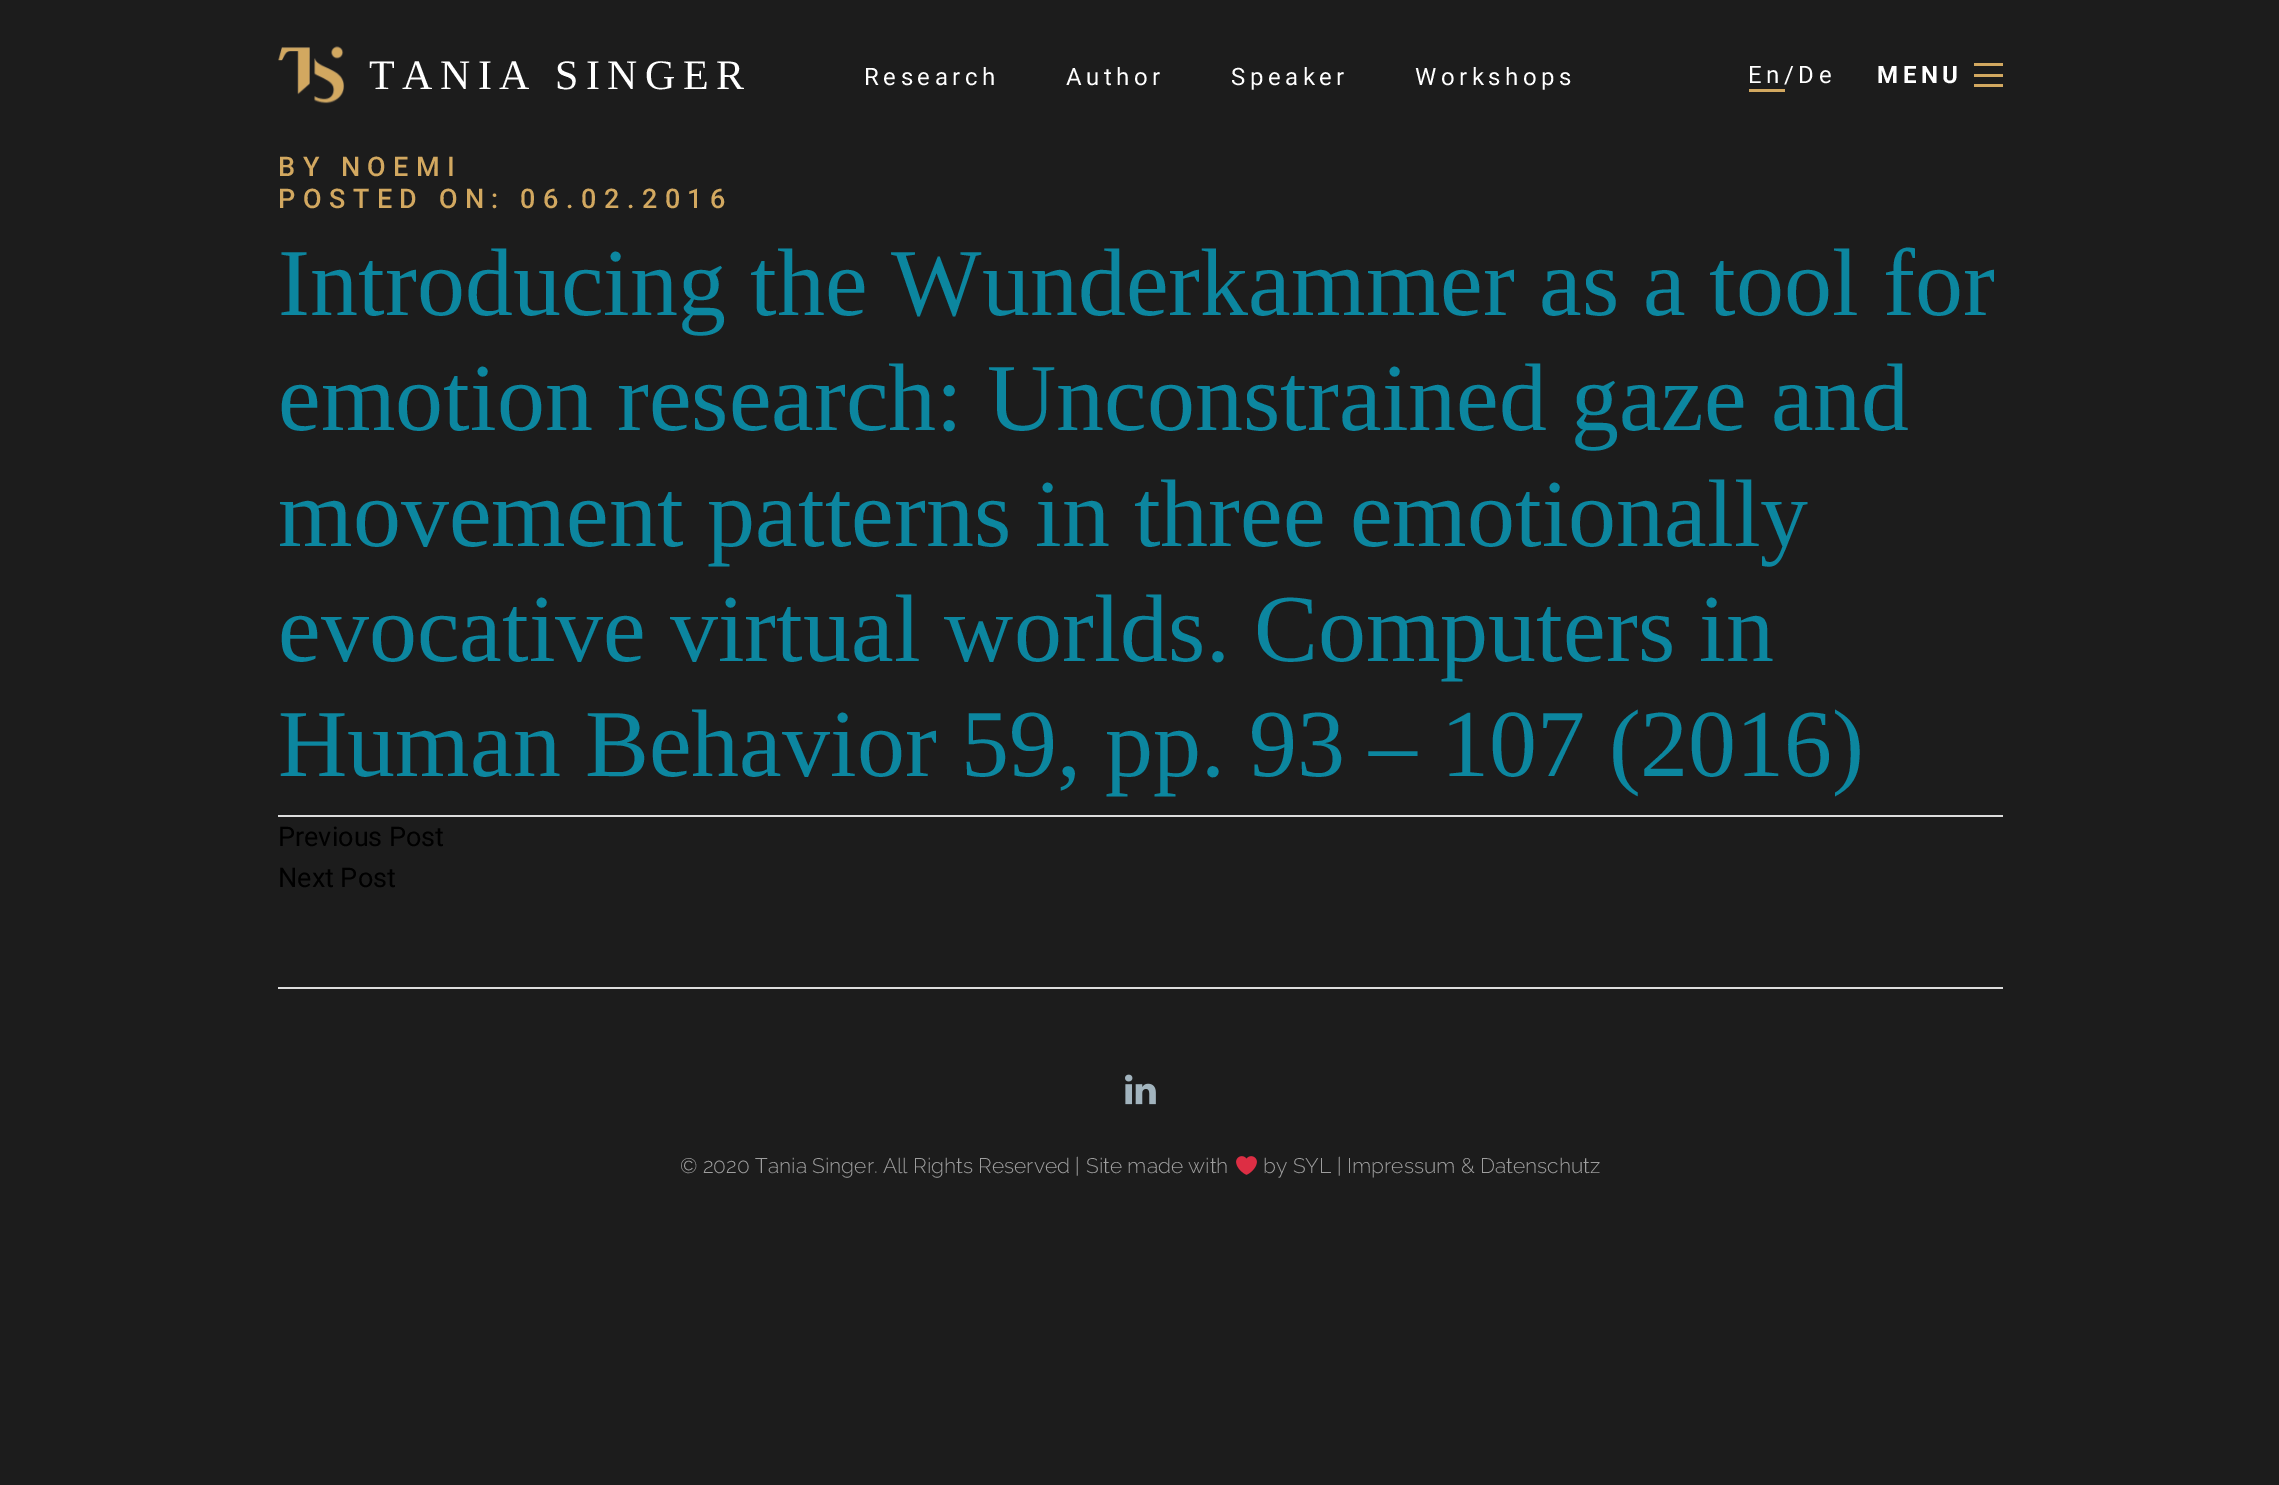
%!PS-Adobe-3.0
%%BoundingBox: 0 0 2279 1485
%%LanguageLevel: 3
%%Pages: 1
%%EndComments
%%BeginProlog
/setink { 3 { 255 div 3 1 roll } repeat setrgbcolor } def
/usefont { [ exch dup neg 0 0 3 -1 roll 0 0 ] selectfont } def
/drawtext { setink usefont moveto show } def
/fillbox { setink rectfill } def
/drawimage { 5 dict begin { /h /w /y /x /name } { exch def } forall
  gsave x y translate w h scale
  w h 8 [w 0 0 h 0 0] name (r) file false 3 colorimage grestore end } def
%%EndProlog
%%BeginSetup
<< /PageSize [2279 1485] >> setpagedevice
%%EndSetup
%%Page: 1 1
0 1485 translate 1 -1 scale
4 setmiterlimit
0 0 2279 1485 28 28 28 fillbox
(assets/img1.rgb) 278 46 67 58 drawimage
/LiberationSerif-Regular 42 usefont
255 255 255 setink
369 89 moveto 7.5 0 (TANIA SINGER) ashow
/Roboto-Regular 24 usefont
864 85 moveto 4.5 0 (Research) ashow
1066 85 moveto 4.5 0 (Author) ashow
1231 85 moveto 4.5 0 (Speaker) ashow
1415 85 moveto 4.5 0 (Workshops) ashow
1748 83 moveto 4.5 0 (En/De) ashow
1749 89 36 3 210 168 96 fillbox
/Roboto-Bold 24 usefont
255 255 255 setink
1877 83 moveto 4.5 0 (MENU) ashow
1974 63 29 3 210 168 96 fillbox
1974 74 29 3 210 168 96 fillbox
1974 84 29 3 210 168 96 fillbox
/Roboto-Medium 27 usefont
278 176 moveto 7.5 0 (BY NOEMI) ashow
278 208 moveto 7.5 0 (POSTED ON: 06.02.2016) ashow
(Introducing the Wunderkammer as a tool for) 278 315 /LiberationSerif-Regular 96 12 134 159 drawtext
(emotion research: Unconstrained gaze and) 278 430 /LiberationSerif-Regular 96 12 134 159 drawtext
(movement patterns in three emotionally) 278 546 /LiberationSerif-Regular 96 12 134 159 drawtext
(evocative virtual worlds. Computers in) 278 661 /LiberationSerif-Regular 96 12 134 159 drawtext
(Human Behavior 59, pp. 93 – 107 \(2016\)) 278 776 /LiberationSerif-Regular 96 12 134 159 drawtext
278 815 1725 2 220 220 220 fillbox
(Previous Post) 278 846 /Roboto-Regular 27 0 0 0 drawtext
(Next Post) 278 887 /Roboto-Regular 27 0 0 0 drawtext
278 987 1725 2 220 220 220 fillbox
(assets/img2.rgb) 1125 1074 31 31 drawimage
(© 2020 Tania Singer. All Rights Reserved |) 680 1173 /Raleway-Thin 21 158 158 158 drawtext
(Site made with) 1086 1173 /Raleway-Thin 21 158 158 158 drawtext
(assets/img3.rgb) 1236 1156 21 19 drawimage
(by SYL) 1263 1173 /Raleway-Thin 21 158 158 158 drawtext
(| Impressum & Datenschutz) 1337 1173 /Raleway-Thin 21 158 158 158 drawtext
showpage
%%EOF
